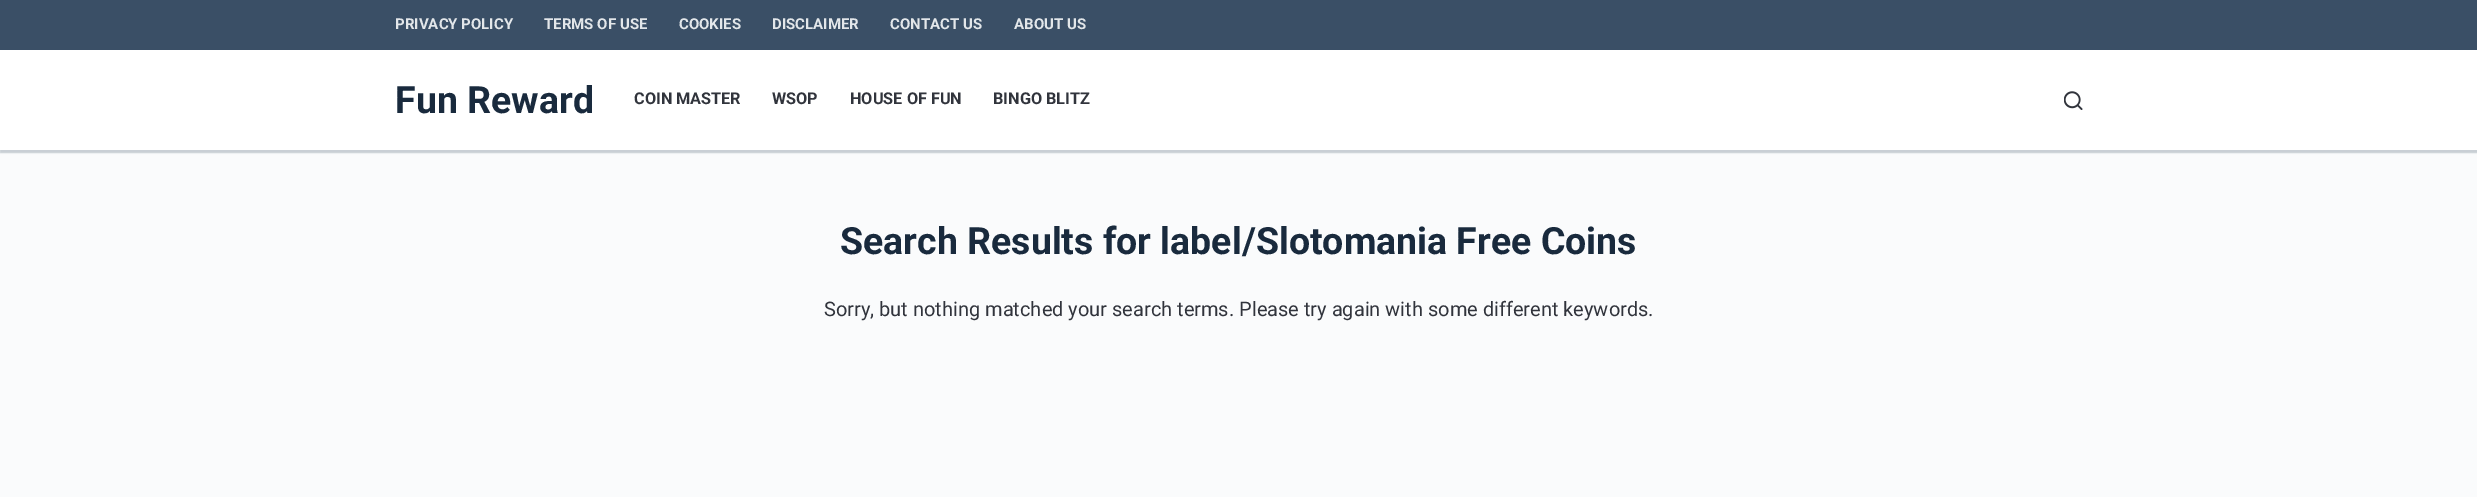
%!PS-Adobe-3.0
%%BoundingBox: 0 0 2477 497
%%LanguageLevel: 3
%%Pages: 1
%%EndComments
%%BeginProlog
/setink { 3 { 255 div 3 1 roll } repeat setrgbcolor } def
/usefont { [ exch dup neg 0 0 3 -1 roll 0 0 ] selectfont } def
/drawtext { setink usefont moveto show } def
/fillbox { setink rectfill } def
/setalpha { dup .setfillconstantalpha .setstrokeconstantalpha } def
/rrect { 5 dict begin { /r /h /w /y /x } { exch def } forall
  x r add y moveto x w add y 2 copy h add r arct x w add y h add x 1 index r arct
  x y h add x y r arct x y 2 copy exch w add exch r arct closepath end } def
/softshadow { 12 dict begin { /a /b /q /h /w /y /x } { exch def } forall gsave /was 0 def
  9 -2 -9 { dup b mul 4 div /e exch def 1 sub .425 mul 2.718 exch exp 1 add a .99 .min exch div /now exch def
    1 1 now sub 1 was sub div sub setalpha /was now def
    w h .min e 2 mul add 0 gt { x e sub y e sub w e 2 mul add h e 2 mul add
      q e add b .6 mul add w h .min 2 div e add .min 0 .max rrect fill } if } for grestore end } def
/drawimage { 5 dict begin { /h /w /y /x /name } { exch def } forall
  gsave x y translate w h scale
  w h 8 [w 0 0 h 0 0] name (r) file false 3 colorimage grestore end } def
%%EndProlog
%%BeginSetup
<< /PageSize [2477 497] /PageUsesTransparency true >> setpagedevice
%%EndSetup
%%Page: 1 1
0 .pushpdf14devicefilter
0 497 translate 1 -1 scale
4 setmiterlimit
0 0 2477 497 250 251 252 fillbox
43 61 79 setink
0 50 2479 103 0 0.5 0.24 softshadow
0 0 2477 50 58 79 102 fillbox
(PRIVACY POLICY) 395 29 /Roboto-Bold 15 227 231 234 drawtext
(TERMS OF USE) 544 29 /Roboto-Bold 15 227 231 234 drawtext
(COOKIES) 679 29 /Roboto-Bold 15 227 231 234 drawtext
(DISCLAIMER) 772 29 /Roboto-Bold 15 227 231 234 drawtext
(CONTACT US) 890 29 /Roboto-Bold 15 227 231 234 drawtext
(ABOUT US) 1014 29 /Roboto-Bold 15 227 231 234 drawtext
0 50 2477 100 255 255 255 fillbox
(Fun Reward) 395 113 /Roboto-Bold 37.5 25 42 61 drawtext
(COIN MASTER) 634 104 /Roboto-Bold 16.25 49 52 60 drawtext
(WSOP) 772 104 /Roboto-Bold 16.25 49 52 60 drawtext
(HOUSE OF FUN) 850 104 /Roboto-Bold 16.25 49 52 60 drawtext
(BINGO BLITZ) 993 104 /Roboto-Bold 16.25 49 52 60 drawtext
(assets/img1.rgb) 2064 91 19 19 drawimage
(Search Results for label/Slotomania Free Coins) 840 254 /Roboto-Bold 37.5 25 42 61 drawtext
(Sorry, but nothing matched your search terms. Please try again with some different keywords.) 824 316 /Roboto-Regular 20 49 52 60 drawtext
.poppdf14devicefilter showpage
%%EOF
